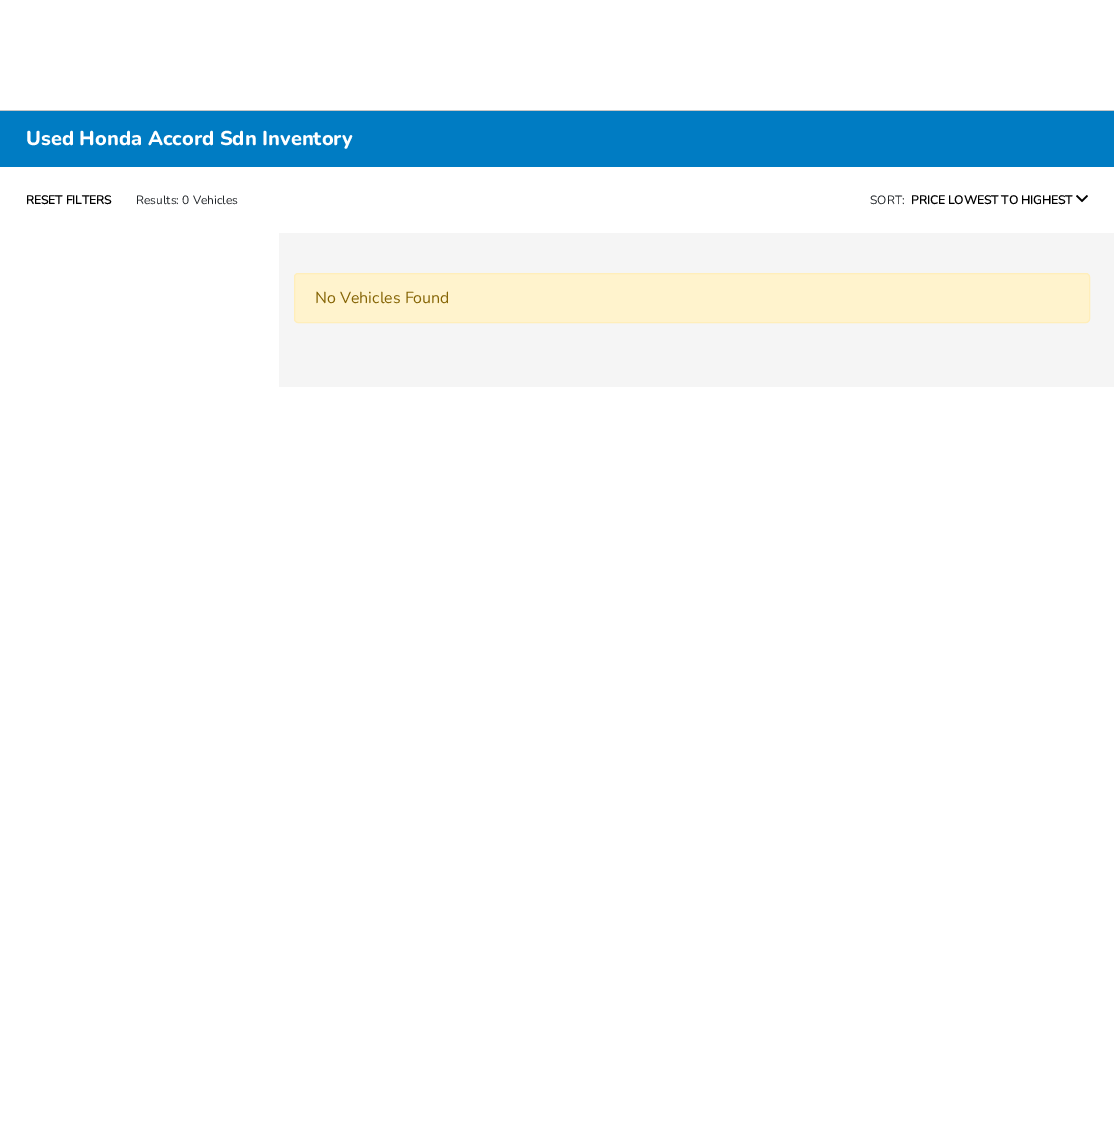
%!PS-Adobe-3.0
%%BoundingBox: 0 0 1114 1125
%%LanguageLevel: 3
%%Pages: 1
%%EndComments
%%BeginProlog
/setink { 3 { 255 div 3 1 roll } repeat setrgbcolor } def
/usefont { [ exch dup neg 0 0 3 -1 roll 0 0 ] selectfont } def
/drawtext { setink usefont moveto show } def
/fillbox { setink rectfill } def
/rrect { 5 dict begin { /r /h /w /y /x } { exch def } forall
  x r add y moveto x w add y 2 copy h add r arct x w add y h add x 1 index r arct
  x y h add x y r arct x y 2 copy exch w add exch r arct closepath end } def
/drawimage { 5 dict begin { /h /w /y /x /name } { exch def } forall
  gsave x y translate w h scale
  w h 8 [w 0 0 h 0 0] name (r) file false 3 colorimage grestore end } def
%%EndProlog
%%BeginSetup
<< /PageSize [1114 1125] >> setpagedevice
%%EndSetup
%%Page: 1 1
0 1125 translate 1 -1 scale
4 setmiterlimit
0 0 1114 1125 255 255 255 fillbox
279 233 835 154 245 245 245 fillbox
0 111 1114 56 0 124 195 fillbox
0 110 1114 1 198 198 198 fillbox
(Used Honda Accord Sdn Inventory) 26 145 /Nunito-ExtraBold 20 255 255 255 drawtext
(RESET FILTERS) 26 204 /Nunito-Bold 12 0 0 0 drawtext
(Results: 0 Vehicles) 136 204 /Nunito-Regular 12 33 37 41 drawtext
(SORT:) 870 204 /Nunito-Regular 12 33 37 41 drawtext
(PRICE LOWEST TO HIGHEST) 911 204 /Nunito-Bold 12 0 0 0 drawtext
(assets/img1.rgb) 1076 195 12 8 drawimage
255 243 205 setink
294.5 273.5 795 49 3.5 rrect gsave fill grestore
255 238 186 setink
stroke
(No Vehicles Found) 315 303 /Nunito-Regular 16 133 100 4 drawtext
showpage
%%EOF
